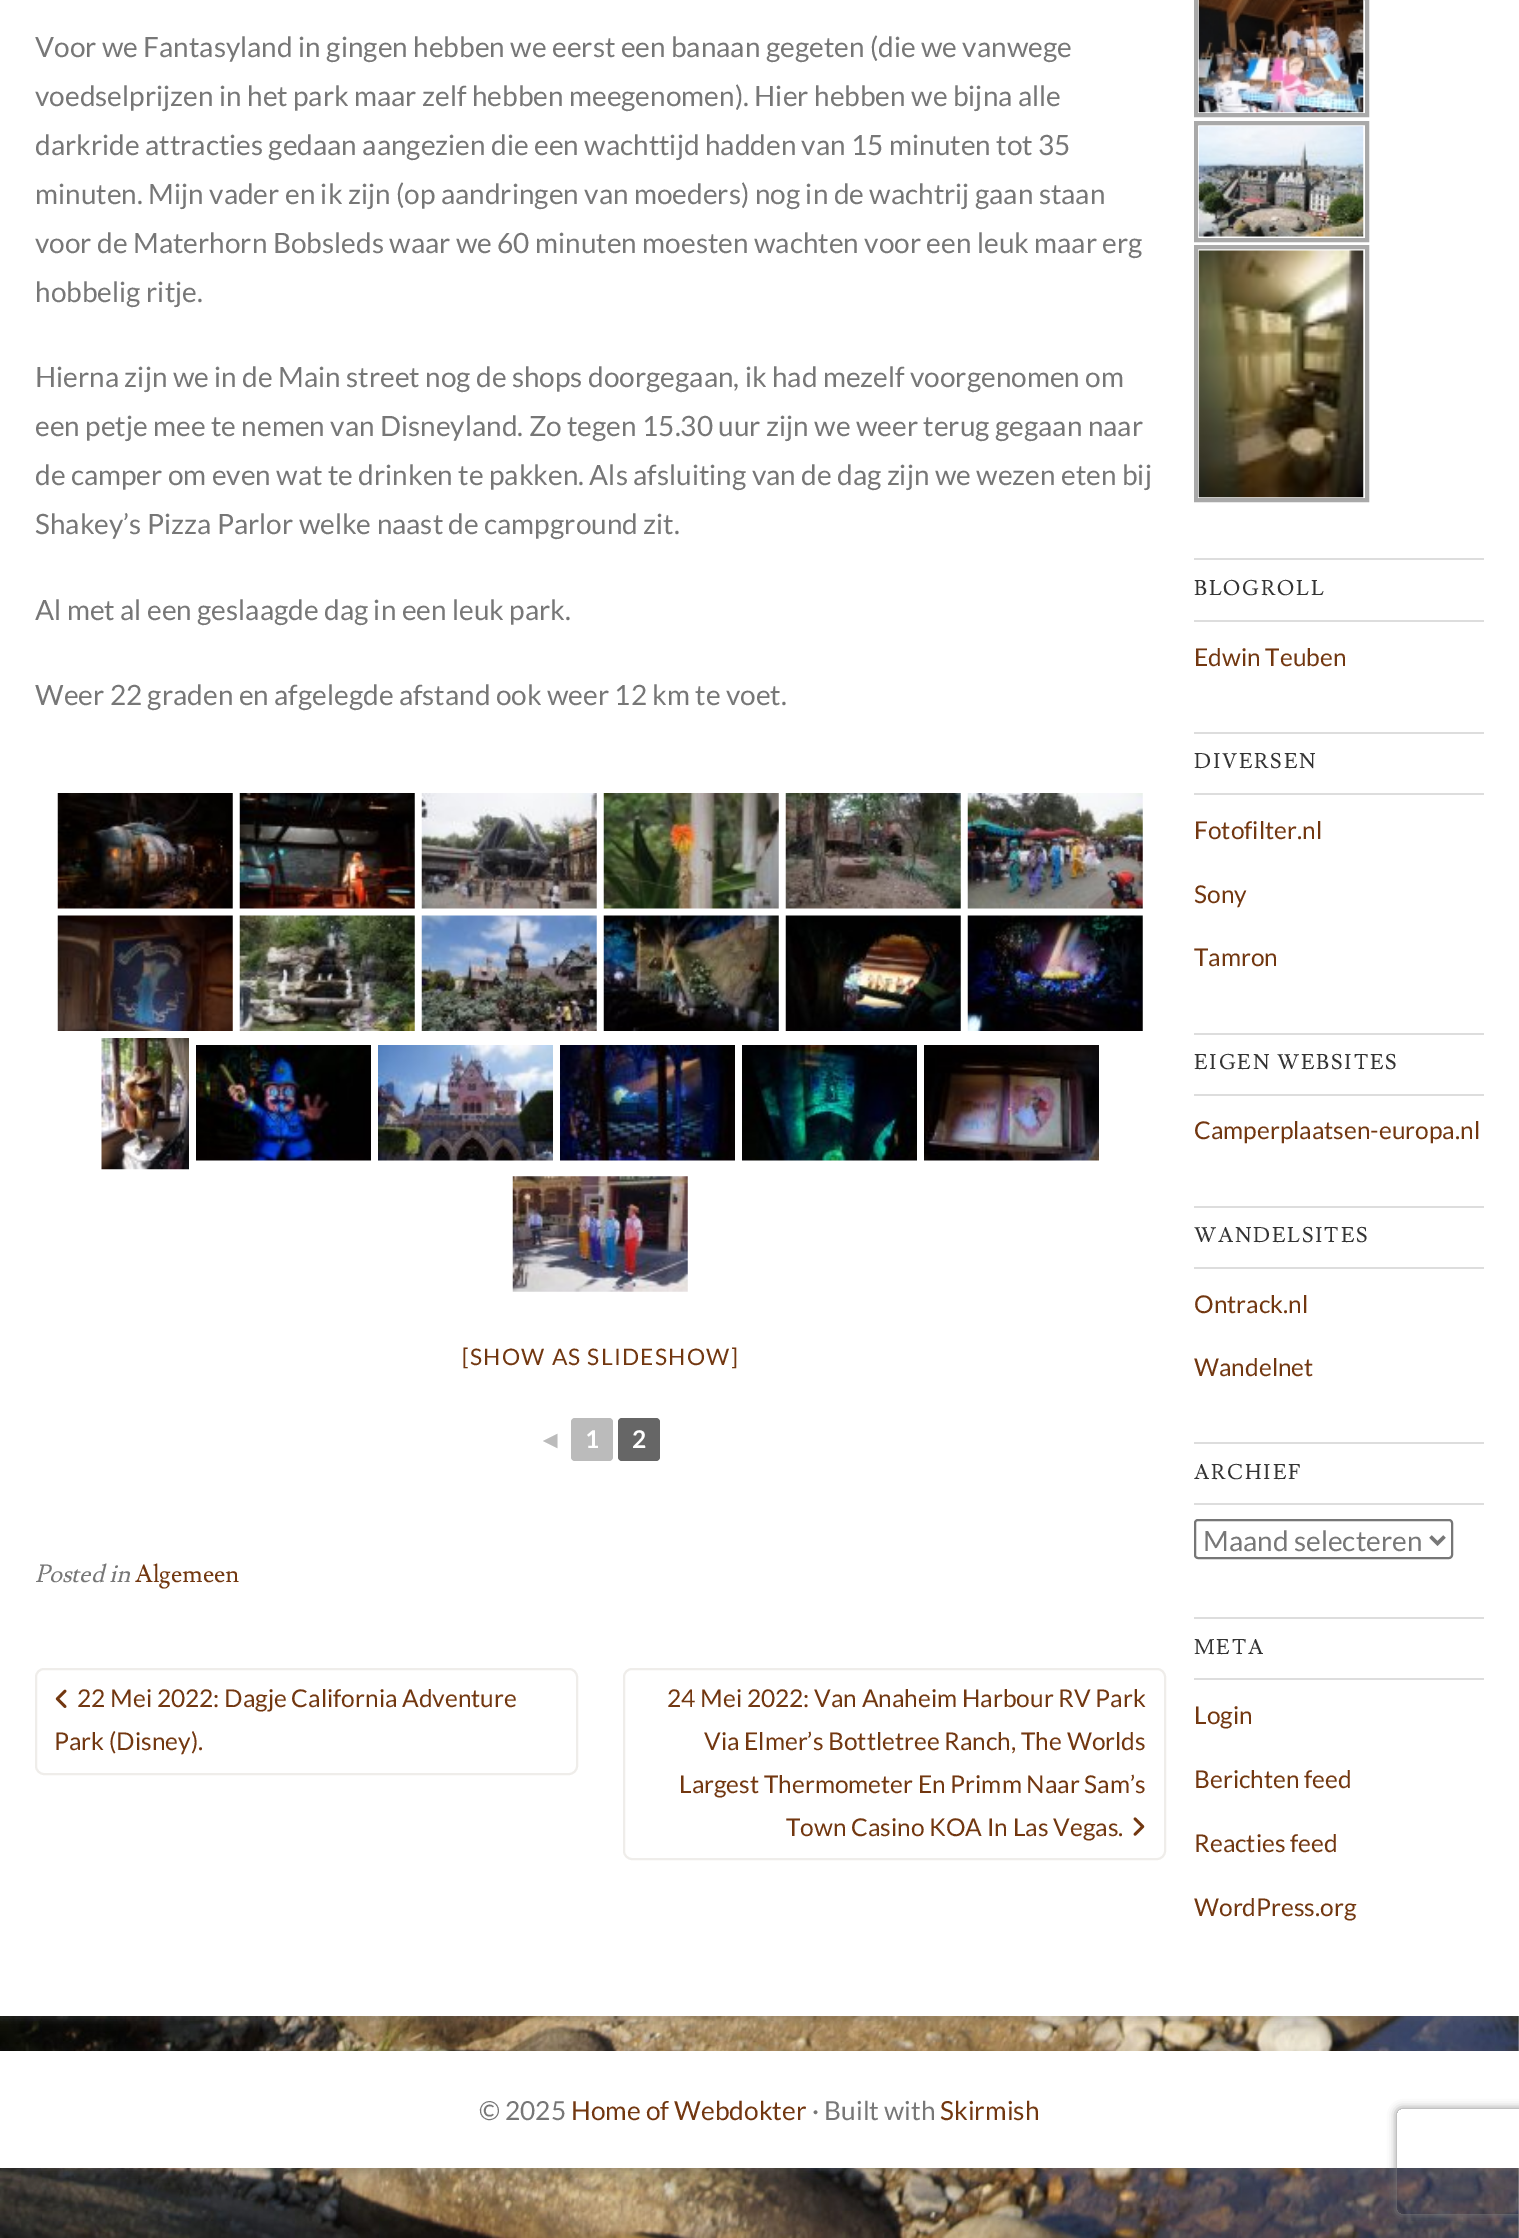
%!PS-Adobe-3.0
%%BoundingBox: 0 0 1519 2238
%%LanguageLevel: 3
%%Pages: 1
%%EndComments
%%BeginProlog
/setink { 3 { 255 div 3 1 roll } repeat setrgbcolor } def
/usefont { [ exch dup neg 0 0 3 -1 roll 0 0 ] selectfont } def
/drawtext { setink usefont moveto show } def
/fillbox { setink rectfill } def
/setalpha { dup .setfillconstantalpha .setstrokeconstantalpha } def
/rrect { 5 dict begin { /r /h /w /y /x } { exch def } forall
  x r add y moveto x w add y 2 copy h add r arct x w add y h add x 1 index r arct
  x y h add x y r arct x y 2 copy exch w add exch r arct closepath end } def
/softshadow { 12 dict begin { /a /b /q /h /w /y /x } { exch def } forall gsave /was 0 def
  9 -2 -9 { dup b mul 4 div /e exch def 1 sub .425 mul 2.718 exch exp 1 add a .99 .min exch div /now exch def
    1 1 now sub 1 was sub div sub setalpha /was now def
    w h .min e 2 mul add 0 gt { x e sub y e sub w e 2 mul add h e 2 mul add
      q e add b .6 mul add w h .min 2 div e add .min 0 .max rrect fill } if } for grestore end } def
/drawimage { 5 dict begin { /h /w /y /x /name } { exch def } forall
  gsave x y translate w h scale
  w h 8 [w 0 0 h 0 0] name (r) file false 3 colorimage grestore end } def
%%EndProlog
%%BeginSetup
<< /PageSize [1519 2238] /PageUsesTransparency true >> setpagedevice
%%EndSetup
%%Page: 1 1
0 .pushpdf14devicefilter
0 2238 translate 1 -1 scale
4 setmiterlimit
0 0 1519 2238 208 208 208 fillbox
(assets/img1.rgb) 0 2016 1519 222 drawimage
100 100 100 setink
0 -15 1519 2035 0 5 0.3 softshadow
0 0 1519 2016 255 255 255 fillbox
(Voor we Fantasyland in gingen hebben we eerst een banaan gegeten \(die we vanwege) 35 57 /Lato-Regular 28 119 119 119 drawtext
(voedselprijzen in het park maar zelf hebben meegenomen\). Hier hebben we bijna alle) 35 106 /Lato-Regular 28 119 119 119 drawtext
(darkride attracties gedaan aangezien die een wachttijd hadden van 15 minuten tot 35) 35 155 /Lato-Regular 28 119 119 119 drawtext
(minuten. Mijn vader en ik zijn \(op aandringen van moeders\) nog in de wachtrij gaan staan) 35 204 /Lato-Regular 28 119 119 119 drawtext
(voor de Materhorn Bobsleds waar we 60 minuten moesten wachten voor een leuk maar erg) 35 253 /Lato-Regular 28 119 119 119 drawtext
(hobbelig ritje.) 35 302 /Lato-Regular 28 119 119 119 drawtext
(Hierna zijn we in de Main street nog de shops doorgegaan, ik had mezelf voorgenomen om) 35 387 /Lato-Regular 28 119 119 119 drawtext
(een petje mee te nemen van Disneyland. Zo tegen 15.30 uur zijn we weer terug gegaan naar) 35 436 /Lato-Regular 28 119 119 119 drawtext
(de camper om even wat te drinken te pakken. Als afsluiting van de dag zijn we wezen eten bij) 35 485 /Lato-Regular 28 119 119 119 drawtext
(Shakey’s Pizza Parlor welke naast de campground zit.) 35 534 /Lato-Regular 28 119 119 119 drawtext
(Al met al een geslaagde dag in een leuk park.) 35 620 /Lato-Regular 28 119 119 119 drawtext
(Weer 22 graden en afgelegde afstand ook weer 12 km te voet.) 35 705 /Lato-Regular 28 119 119 119 drawtext
(assets/img2.rgb) 57 793 176 116 drawimage
(assets/img3.rgb) 239 793 176 116 drawimage
(assets/img4.rgb) 421 793 176 116 drawimage
(assets/img5.rgb) 603 793 176 116 drawimage
(assets/img6.rgb) 785 793 176 116 drawimage
(assets/img7.rgb) 967 793 176 116 drawimage
(assets/img8.rgb) 57 915 176 116 drawimage
(assets/img9.rgb) 239 915 176 116 drawimage
(assets/img10.rgb) 421 915 176 116 drawimage
(assets/img11.rgb) 603 915 176 116 drawimage
(assets/img12.rgb) 785 915 176 116 drawimage
(assets/img13.rgb) 967 915 176 116 drawimage
(assets/img14.rgb) 101 1038 88 132 drawimage
(assets/img15.rgb) 196 1045 175 116 drawimage
(assets/img16.rgb) 378 1045 175 116 drawimage
(assets/img17.rgb) 560 1045 175 116 drawimage
(assets/img18.rgb) 742 1045 175 116 drawimage
(assets/img19.rgb) 924 1045 175 116 drawimage
(assets/img20.rgb) 512 1176 176 116 drawimage
/Lato-Regular 22.75 usefont
114 55 16 setink
462 1365 moveto 1.3 0 ([SHOW AS SLIDESHOW]) ashow
(◄) 538 1448 /LiberationSans-Bold 24.5 187 187 187 drawtext
571 1418 42 43 4 rrect fill
(1) 585 1448 /Lato-Bold 24.5 255 255 255 drawtext
102 102 102 setink
618 1418 42 43 4 rrect fill
(2) 632 1448 /Lato-Bold 24.5 255 255 255 drawtext
(Posted in) 35 1582 /Lusitana-Italic 24.5 119 119 119 drawtext
(Algemeen) 135 1582 /Lusitana-Regular 24.5 114 55 16 drawtext
239 237 234 setink
2 setlinewidth
36 1669 541 105 8 rrect stroke
(assets/img21.rgb) 55 1689 12 19 drawimage
(22 Mei 2022: Dagje California Adventure) 77 1707 /Lato-Regular 24.5 114 55 16 drawtext
(Park \(Disney\).) 54 1750 /Lato-Regular 24.5 114 55 16 drawtext
239 237 234 setink
624 1669 541 190 8 rrect stroke
(24 Mei 2022: Van Anaheim Harbour RV Park) 667 1707 /Lato-Regular 24.5 114 55 16 drawtext
(Via Elmer’s Bottletree Ranch, The Worlds) 704 1750 /Lato-Regular 24.5 114 55 16 drawtext
(Largest Thermometer En Primm Naar Sam’s) 679 1793 /Lato-Regular 24.5 114 55 16 drawtext
(Town Casino KOA In Las Vegas.) 786 1836 /Lato-Regular 24.5 114 55 16 drawtext
(assets/img22.rgb) 1133 1817 12 19 drawimage
169 169 169 setink
4 setlinewidth
1196 -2 171 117 rectstroke
(assets/img23.rgb) 1198 0 166 113 drawimage
1196 123 171 117 rectstroke
(assets/img24.rgb) 1198 126 166 111 drawimage
1196 247 171 253 rectstroke
(assets/img25.rgb) 1198 250 166 248 drawimage
1194 558 290 2 221 221 221 fillbox
1194 620 290 2 221 221 221 fillbox
/Lusitana-Regular 21 usefont
51 51 51 setink
1194 595 moveto 1.75 0 (BLOGROLL) ashow
(Edwin Teuben) 1194 666 /Lato-Regular 24.5 114 55 16 drawtext
1194 732 290 2 221 221 221 fillbox
1194 793 290 2 221 221 221 fillbox
/Lusitana-Regular 21 usefont
51 51 51 setink
1194 768 moveto 1.75 0 (DIVERSEN) ashow
(Fotofilter.nl) 1194 839 /Lato-Regular 24.5 114 55 16 drawtext
(Sony) 1194 903 /Lato-Regular 24.5 114 55 16 drawtext
(Tamron) 1194 966 /Lato-Regular 24.5 114 55 16 drawtext
1194 1033 290 2 221 221 221 fillbox
1194 1094 290 2 221 221 221 fillbox
/Lusitana-Regular 21 usefont
51 51 51 setink
1194 1069 moveto 1.75 0 (EIGEN WEBSITES) ashow
(Camperplaatsen-europa.nl) 1194 1139 /Lato-Regular 24.5 114 55 16 drawtext
1194 1206 290 2 221 221 221 fillbox
1194 1267 290 2 221 221 221 fillbox
/Lusitana-Regular 21 usefont
51 51 51 setink
1194 1242 moveto 1.75 0 (WANDELSITES) ashow
(Ontrack.nl) 1194 1313 /Lato-Regular 24.5 114 55 16 drawtext
(Wandelnet) 1194 1376 /Lato-Regular 24.5 114 55 16 drawtext
1194 1442 290 2 221 221 221 fillbox
1194 1503 290 2 221 221 221 fillbox
/Lusitana-Regular 21 usefont
51 51 51 setink
1194 1479 moveto 1.75 0 (ARCHIEF) ashow
118 118 118 setink
2 setlinewidth
1195 1520 257 38 3 rrect stroke
119 119 119 setink
3.5 setlinewidth
1430.5 1536.5 moveto 1437.5 1543.5 lineto 1444.5 1536.5 lineto stroke
(Maand selecteren) 1203 1551 /Lato-Regular 28 119 119 119 drawtext
1194 1617 290 2 221 221 221 fillbox
1194 1678 290 2 221 221 221 fillbox
/Lusitana-Regular 21 usefont
51 51 51 setink
1194 1654 moveto 1.75 0 (META) ashow
(Login) 1194 1724 /Lato-Regular 24.5 114 55 16 drawtext
(Berichten feed) 1194 1788 /Lato-Regular 24.5 114 55 16 drawtext
(Reacties feed) 1194 1852 /Lato-Regular 24.5 114 55 16 drawtext
(WordPress.org) 1194 1916 /Lato-Regular 24.5 114 55 16 drawtext
100 100 100 setink
0 2055 1519 117 0 5 0.3 softshadow
0 2051 1519 117 255 255 255 fillbox
(© 2025) 479 2120 /Lato-Regular 26.25 119 119 119 drawtext
(Home of Webdokter) 571 2120 /Lato-Regular 26.25 114 55 16 drawtext
(· Built with) 812 2120 /Lato-Regular 26.25 119 119 119 drawtext
(Skirmish) 940 2120 /Lato-Regular 26.25 114 55 16 drawtext
gsave
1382 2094 moveto 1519 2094 lineto 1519 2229 lineto 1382 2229 lineto closepath 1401 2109 moveto 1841 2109 lineto 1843 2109 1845 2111 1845 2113 curveto 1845 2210 lineto 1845 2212 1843 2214 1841 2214 curveto 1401 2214 lineto 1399 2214 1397 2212 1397 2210 curveto 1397 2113 lineto 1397 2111 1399 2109 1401 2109 curveto closepath eoclip newpath
128 128 128 setink
1397 2109 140 105 4 4.5 1 softshadow
grestore
.poppdf14devicefilter showpage
%%EOF
